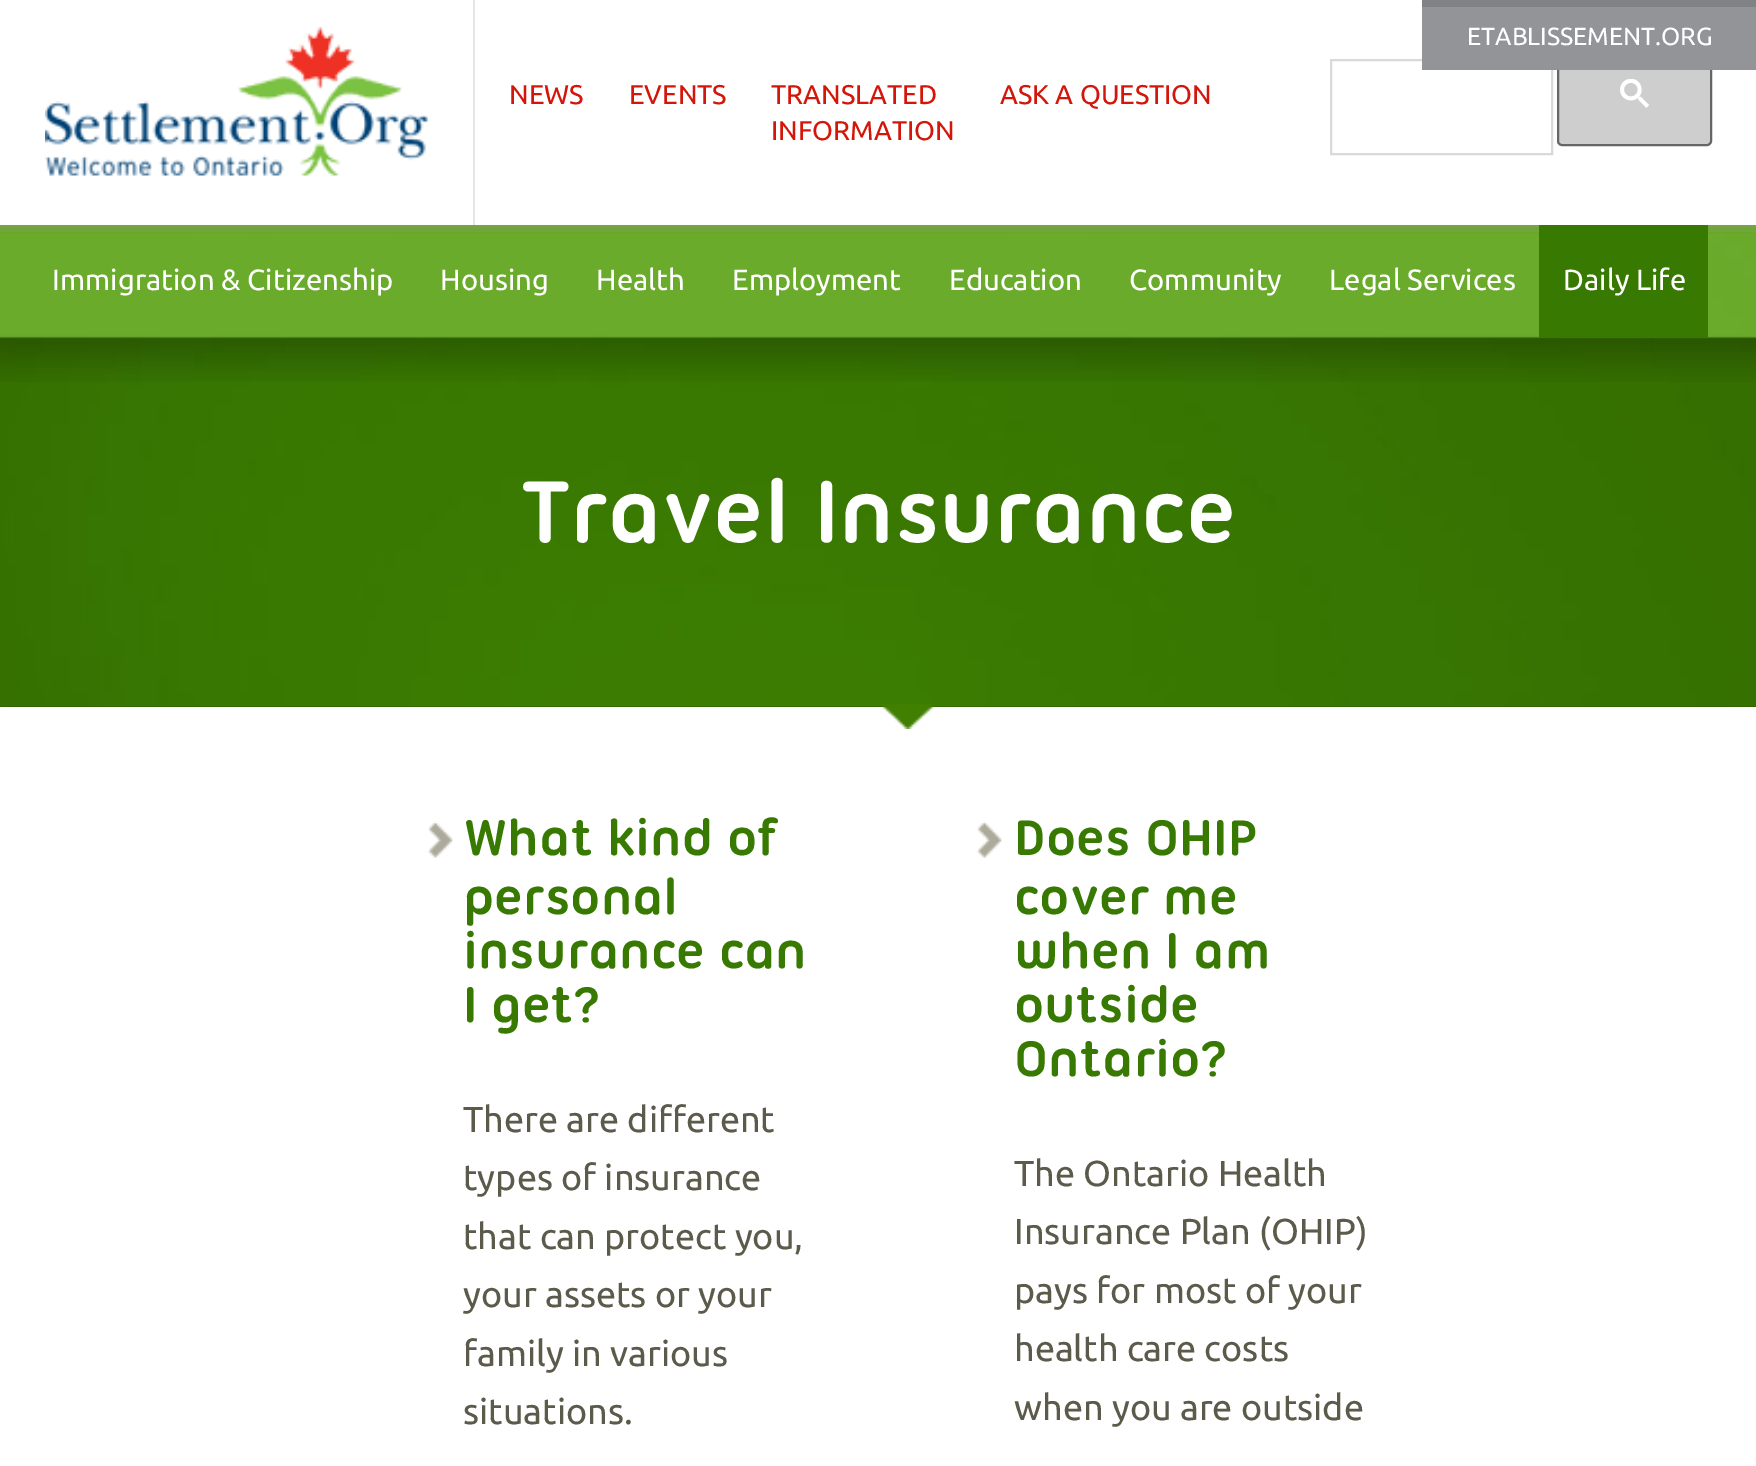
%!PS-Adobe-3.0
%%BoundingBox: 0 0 1756 1466
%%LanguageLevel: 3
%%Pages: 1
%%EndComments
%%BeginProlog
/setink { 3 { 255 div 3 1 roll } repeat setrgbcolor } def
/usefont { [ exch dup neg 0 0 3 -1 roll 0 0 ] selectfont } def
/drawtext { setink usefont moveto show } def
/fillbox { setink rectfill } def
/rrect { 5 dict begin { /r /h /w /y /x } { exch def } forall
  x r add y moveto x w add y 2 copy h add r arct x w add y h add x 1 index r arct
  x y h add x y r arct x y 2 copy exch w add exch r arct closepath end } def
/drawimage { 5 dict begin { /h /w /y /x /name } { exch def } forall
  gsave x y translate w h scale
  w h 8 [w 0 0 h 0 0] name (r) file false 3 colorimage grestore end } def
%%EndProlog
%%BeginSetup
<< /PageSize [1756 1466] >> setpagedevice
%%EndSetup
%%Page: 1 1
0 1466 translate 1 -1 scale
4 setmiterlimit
0 0 1756 1466 255 255 255 fillbox
217 217 217 setink
2 setlinewidth
1331 60 221 94 rectstroke
206 206 206 setink
1558 64 153 81 4 rrect gsave fill grestore
102 102 102 setink
stroke
1422 7 334 63 146 148 151 fillbox
1422 0 334 7 128 130 133 fillbox
(ETABLISSEMENT.ORG) 1467 45 /Ubuntu-Regular 24.75 255 255 255 drawtext
(assets/img1.rgb) 45 27 383 149 drawimage
473 0 2 225 230 230 230 fillbox
(NEWS) 509 104 /Ubuntu-Regular 27 211 22 9 drawtext
(EVENTS) 629 104 /Ubuntu-Regular 27 211 22 9 drawtext
(TRANSLATED) 771 104 /Ubuntu-Regular 27 211 22 9 drawtext
(INFORMATION) 771 140 /Ubuntu-Regular 27 211 22 9 drawtext
(ASK A QUESTION) 1000 104 /Ubuntu-Regular 27 211 22 9 drawtext
(assets/img2.rgb) 1620 79 29 29 drawimage
0 706 1756 1 42 89 1 fillbox
(assets/img4.rgb) 0 231 1756 476 drawimage
(assets/img3.rgb) 0 225 1756 157 drawimage
(Immigration & Citizenship) 52 290 /Ubuntu-Regular 29.25 255 255 255 drawtext
(Housing) 440 290 /Ubuntu-Regular 29.25 255 255 255 drawtext
(Health) 596 290 /Ubuntu-Regular 29.25 255 255 255 drawtext
(Employment) 732 290 /Ubuntu-Regular 29.25 255 255 255 drawtext
(Education) 949 290 /Ubuntu-Regular 29.25 255 255 255 drawtext
(Community) 1129 290 /Ubuntu-Regular 29.25 255 255 255 drawtext
(Legal Services) 1329 290 /Ubuntu-Regular 29.25 255 255 255 drawtext
1539 225 169 113 56 122 1 fillbox
(Daily Life) 1563 290 /Ubuntu-Regular 29.25 255 255 255 drawtext
(Travel Insurance) 521 542 /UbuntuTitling-Bold 94.5 255 255 255 drawtext
(assets/img5.rgb) 881 704 55 25 drawimage
(assets/img6.rgb) 427 821 26 37 drawimage
(What kind of) 463 855 /UbuntuTitling-Bold 54 56 122 1 drawtext
(personal) 463 914 /UbuntuTitling-Bold 54 56 122 1 drawtext
(insurance can) 463 968 /UbuntuTitling-Bold 54 56 122 1 drawtext
(I get?) 463 1022 /UbuntuTitling-Bold 54 56 122 1 drawtext
(There are different) 463 1132 /Ubuntu-Regular 36 92 90 74 drawtext
(types of insurance) 463 1190 /Ubuntu-Regular 36 92 90 74 drawtext
(that can protect you,) 463 1249 /Ubuntu-Regular 36 92 90 74 drawtext
(your assets or your) 463 1307 /Ubuntu-Regular 36 92 90 74 drawtext
(family in various) 463 1366 /Ubuntu-Regular 36 92 90 74 drawtext
(situations.) 463 1424 /Ubuntu-Regular 36 92 90 74 drawtext
(assets/img6.rgb) 976 821 26 37 drawimage
(Does OHIP) 1014 855 /UbuntuTitling-Bold 54 56 122 1 drawtext
(cover me) 1014 914 /UbuntuTitling-Bold 54 56 122 1 drawtext
(when I am) 1014 968 /UbuntuTitling-Bold 54 56 122 1 drawtext
(outside) 1014 1022 /UbuntuTitling-Bold 54 56 122 1 drawtext
(Ontario?) 1014 1076 /UbuntuTitling-Bold 54 56 122 1 drawtext
(The Ontario Health) 1014 1186 /Ubuntu-Regular 36 92 90 74 drawtext
(Insurance Plan \(OHIP\)) 1014 1244 /Ubuntu-Regular 36 92 90 74 drawtext
(pays for most of your) 1014 1303 /Ubuntu-Regular 36 92 90 74 drawtext
(health care costs) 1014 1361 /Ubuntu-Regular 36 92 90 74 drawtext
(when you are outside) 1014 1420 /Ubuntu-Regular 36 92 90 74 drawtext
showpage
%%EOF
